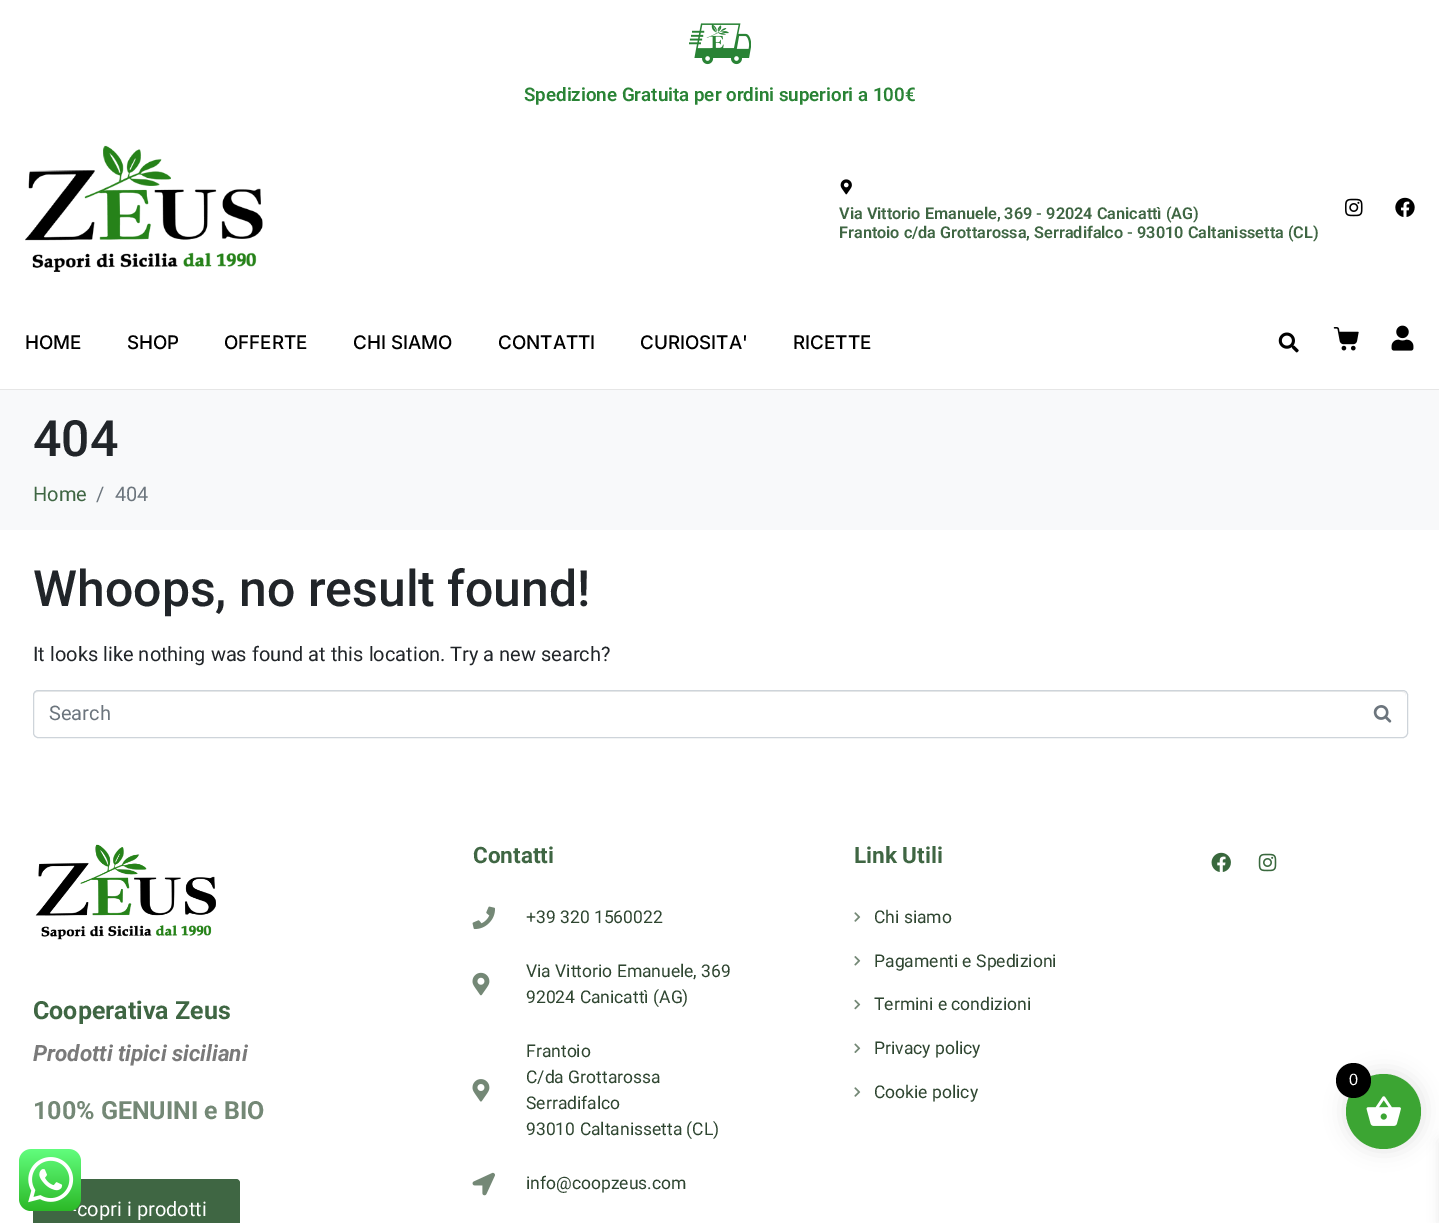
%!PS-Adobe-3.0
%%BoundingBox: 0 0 1439 1223
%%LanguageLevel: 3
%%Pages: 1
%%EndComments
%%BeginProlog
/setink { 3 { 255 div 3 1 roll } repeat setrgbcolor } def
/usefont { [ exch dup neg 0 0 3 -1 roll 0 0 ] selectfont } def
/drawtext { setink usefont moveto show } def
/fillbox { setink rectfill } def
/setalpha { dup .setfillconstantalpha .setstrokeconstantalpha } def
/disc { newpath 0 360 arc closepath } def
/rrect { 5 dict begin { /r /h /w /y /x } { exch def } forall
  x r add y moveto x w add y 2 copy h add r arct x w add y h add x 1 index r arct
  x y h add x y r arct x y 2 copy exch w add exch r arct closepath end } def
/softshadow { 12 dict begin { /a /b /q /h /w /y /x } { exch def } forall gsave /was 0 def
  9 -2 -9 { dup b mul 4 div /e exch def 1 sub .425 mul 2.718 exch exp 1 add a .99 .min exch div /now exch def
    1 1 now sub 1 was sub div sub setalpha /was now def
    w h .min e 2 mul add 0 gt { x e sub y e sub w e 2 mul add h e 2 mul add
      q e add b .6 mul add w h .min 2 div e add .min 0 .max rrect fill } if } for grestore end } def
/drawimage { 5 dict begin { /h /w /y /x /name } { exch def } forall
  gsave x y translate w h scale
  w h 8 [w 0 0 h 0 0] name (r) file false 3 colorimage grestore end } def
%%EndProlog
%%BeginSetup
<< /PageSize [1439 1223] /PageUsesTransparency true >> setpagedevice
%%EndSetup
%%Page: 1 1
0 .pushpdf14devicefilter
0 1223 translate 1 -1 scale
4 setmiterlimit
0 0 1439 1223 255 255 255 fillbox
(assets/img1.rgb) 689 23 62 42 drawimage
(Spedizione Gratuita per ordini superiori a 100€) 524 101 /Roboto-SemiBold 18.75 41 131 53 drawtext
(assets/img2.rgb) 25 145 238 127 drawimage
(assets/img3.rgb) 840 179 12 16 drawimage
(Via Vittorio Emanuele, 369 - 92024 Canicattì \(AG\)) 839 219 /Roboto-SemiBold 16.25 63 102 67 drawtext
(Frantoio c/da Grottarossa, Serradifalco - 93010 Caltanissetta \(CL\)) 839 238 /Roboto-SemiBold 16.25 63 102 67 drawtext
(assets/img4.rgb) 1345 198 18 19 drawimage
(assets/img5.rgb) 1395 197 20 20 drawimage
0 389 1439 1 230 230 230 fillbox
(HOME) 25 349 /Inter-Medium 18.75 0 0 0 drawtext
(SHOP) 127 349 /Inter-Medium 18.75 0 0 0 drawtext
(OFFERTE) 224 349 /Inter-Medium 18.75 0 0 0 drawtext
(CHI SIAMO) 353 349 /Inter-Medium 18.75 0 0 0 drawtext
(CONTATTI) 498 349 /Inter-Medium 18.75 0 0 0 drawtext
(CURIOSITA') 640 349 /Inter-Medium 18.75 0 0 0 drawtext
(RICETTE) 793 349 /Inter-Medium 18.75 0 0 0 drawtext
(assets/img6.rgb) 1278 332 21 21 drawimage
(assets/img7.rgb) 1333 327 26 24 drawimage
(assets/img8.rgb) 1391 325 23 26 drawimage
0 390 1439 140 248 249 250 fillbox
(404) 33 456 /Roboto-Medium 50 33 37 41 drawtext
(Home) 33 501 /Roboto-Regular 20 63 102 67 drawtext
(/) 96 501 /Roboto-Regular 20 108 117 125 drawtext
(404) 115 501 /Roboto-Regular 20 108 117 125 drawtext
(Whoops, no result found!) 33 606 /Roboto-Medium 50 33 37 41 drawtext
(It looks like nothing was found at this location. Try a new search?) 33 661 /Roboto-Regular 20 33 37 41 drawtext
236 236 236 setink
38 692 moveto 1402 692 lineto 1405 692 1406 694 1406 696 curveto 1406 695 lineto 1406 693 1404 691 1402 691 curveto 38 691 lineto 36 691 34 693 34 695 curveto 34 696 lineto 34 694 35 692 38 692 curveto closepath fill
206 212 218 setink
33.5 690.5 1374 47 4.5 rrect stroke
(Search) 49 720 /Roboto-Regular 20 108 117 125 drawtext
(assets/img9.rgb) 1373 705 19 18 drawimage
(Contatti) 473 863 /Roboto-Bold 22.5 63 102 67 drawtext
(assets/img10.rgb) 472 906 23 24 drawimage
(+39 320 1560022) 526 923 /Roboto-Regular 17.5 46 69 48 drawtext
(assets/img11.rgb) 472 972 18 24 drawimage
(Via Vittorio Emanuele, 369) 526 977 /Roboto-Regular 17.5 46 69 48 drawtext
(92024 Canicattì \(AG\)) 526 1003 /Roboto-Regular 17.5 46 69 48 drawtext
(assets/img12.rgb) 472 1079 18 23 drawimage
(Frantoio) 526 1057 /Roboto-Regular 17.5 46 69 48 drawtext
(C/da Grottarossa) 526 1083 /Roboto-Regular 17.5 46 69 48 drawtext
(Serradifalco) 526 1109 /Roboto-Regular 17.5 46 69 48 drawtext
(93010 Caltanissetta \(CL\)) 526 1135 /Roboto-Regular 17.5 46 69 48 drawtext
(assets/img13.rgb) 472 1172 23 24 drawimage
(info@coopzeus.com) 526 1189 /Roboto-Regular 17.5 46 69 48 drawtext
(Link Utili) 854 863 /Roboto-Bold 22.5 63 102 67 drawtext
(assets/img14.rgb) 854 912 7 10 drawimage
(Chi siamo) 874 923 /Roboto-Regular 17.5 46 69 48 drawtext
(assets/img15.rgb) 854 956 7 10 drawimage
(Pagamenti e Spedizioni) 874 967 /Roboto-Regular 17.5 46 69 48 drawtext
(assets/img16.rgb) 854 999 7 11 drawimage
(Termini e condizioni) 874 1010 /Roboto-Regular 17.5 46 69 48 drawtext
(assets/img17.rgb) 854 1043 7 10 drawimage
(Privacy policy) 874 1054 /Roboto-Regular 17.5 46 69 48 drawtext
(assets/img14.rgb) 854 1087 7 10 drawimage
(Cookie policy) 874 1098 /Roboto-Regular 17.5 46 69 48 drawtext
(assets/img18.rgb) 1211 852 20 20 drawimage
(assets/img19.rgb) 1258 853 19 19 drawimage
(assets/img20.rgb) 35 844 181 96 drawimage
(Cooperativa Zeus) 33 1019 /Roboto-Bold 25 63 102 67 drawtext
(Prodotti tipici siciliani) 33 1061 /Roboto-BoldItalic 22.5 122 122 122 drawtext
(100% GENUINI e BIO) 33 1119 /Roboto-Bold 25 116 136 118 drawtext
63 102 67 setink
33 1179 207 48 4 rrect fill
(copri i prodotti) 77 1216 /Roboto-Regular 20 255 255 255 drawtext
0 0 0 setink
1344 1071 80 80 40 9.5 0.1 softshadow
60 165 51 setink
1383.5 1111.5 37.5 disc fill
(assets/img21.rgb) 1366 1096 35 30 drawimage
0 0 0 setink
1353.5 1080.5 17.5 disc fill
(0) 1349 1085 /LiberationSans-Regular 16.25 255 255 255 drawtext
0 0 0 setink
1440 1141 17 82 0 6 0.1 softshadow
(assets/img22.rgb) 19 1149 62 62 drawimage
.poppdf14devicefilter showpage
%%EOF
